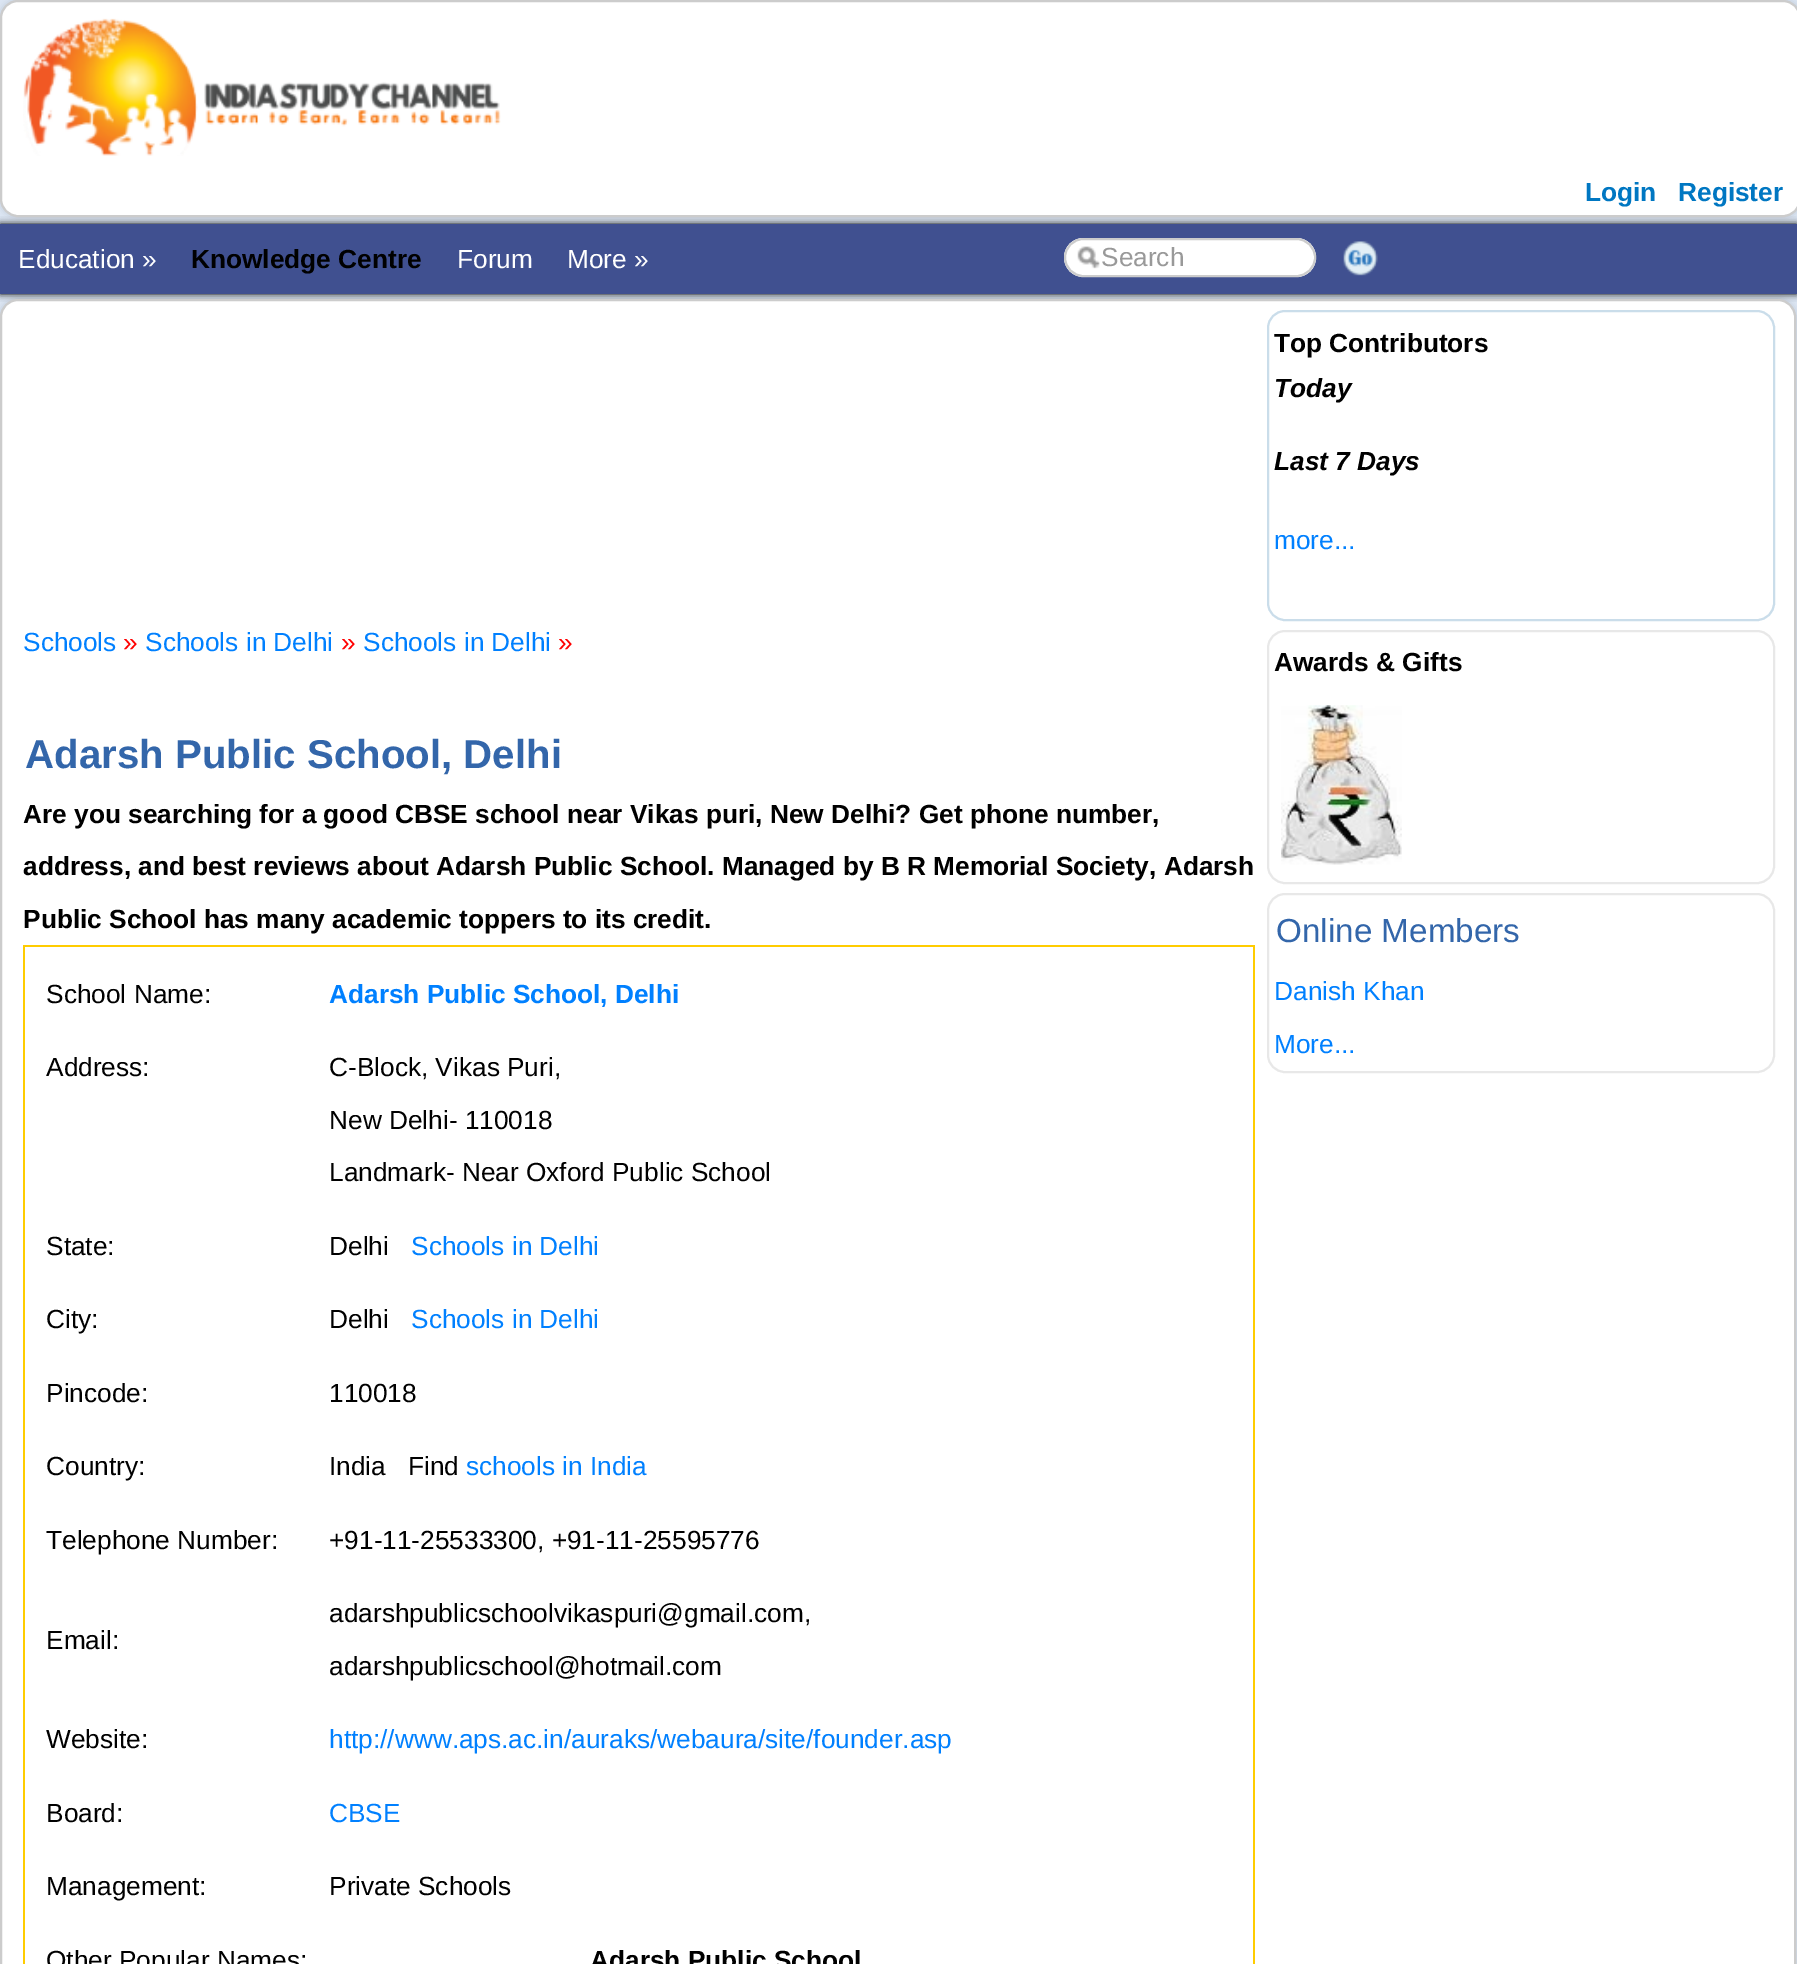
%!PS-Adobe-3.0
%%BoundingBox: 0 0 1797 1964
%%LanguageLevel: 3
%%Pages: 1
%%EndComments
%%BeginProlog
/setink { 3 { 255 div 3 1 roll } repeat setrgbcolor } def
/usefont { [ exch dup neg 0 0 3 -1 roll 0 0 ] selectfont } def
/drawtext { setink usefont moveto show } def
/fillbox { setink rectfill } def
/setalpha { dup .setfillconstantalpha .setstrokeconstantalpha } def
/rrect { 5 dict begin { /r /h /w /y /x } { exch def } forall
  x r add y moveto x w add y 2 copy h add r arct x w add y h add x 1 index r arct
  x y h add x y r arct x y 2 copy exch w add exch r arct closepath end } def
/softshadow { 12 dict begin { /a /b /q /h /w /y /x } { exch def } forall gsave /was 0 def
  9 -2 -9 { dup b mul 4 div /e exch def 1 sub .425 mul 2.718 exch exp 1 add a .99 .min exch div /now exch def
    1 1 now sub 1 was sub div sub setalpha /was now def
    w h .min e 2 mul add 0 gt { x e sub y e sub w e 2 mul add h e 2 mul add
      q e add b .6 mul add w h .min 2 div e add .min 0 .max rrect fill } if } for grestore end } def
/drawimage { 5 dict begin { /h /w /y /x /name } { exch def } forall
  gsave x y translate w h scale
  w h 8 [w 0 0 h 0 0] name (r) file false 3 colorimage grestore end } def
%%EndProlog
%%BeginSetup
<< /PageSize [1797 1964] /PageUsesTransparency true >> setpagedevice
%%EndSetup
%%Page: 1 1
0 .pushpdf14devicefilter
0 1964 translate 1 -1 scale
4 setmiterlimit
0 0 1797 1964 220 230 244 fillbox
0 0 0 setink
0 224 1797 70 0 3.5 1 softshadow
0 224 1797 70 64 80 144 fillbox
50 50 50 setink
0 0 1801 217 18 3.5 0.18 softshadow
255 255 255 setink
1 1 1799 215 17 rrect gsave fill grestore
204 204 204 setink
2 setlinewidth
stroke
(assets/img1.rgb) 23 18 478 138 drawimage
(Login) 1585 201 /LiberationSans-Bold 26.25 0 119 194 drawtext
(Register) 1678 201 /LiberationSans-Bold 26.25 0 119 194 drawtext
(Education ») 18 268 /LiberationSans-Regular 26.25 255 255 255 drawtext
(Knowledge Centre) 191 268 /LiberationSans-Bold 26.25 0 0 0 drawtext
(Forum) 457 268 /LiberationSans-Regular 26.25 255 255 255 drawtext
(More ») 567 268 /LiberationSans-Regular 26.25 255 255 255 drawtext
1064 238 252 39 19.5 rrect fill
(assets/img2.rgb) 1077 246 23 23 drawimage
204 204 204 setink
1065 239 250 37 18.5 rrect stroke
(Search) 1101 266 /LiberationSans-Regular 26.25 153 153 153 drawtext
(assets/img3.rgb) 1343 241 35 35 drawimage
50 50 50 setink
0 299 1796 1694 18 3.5 0.18 softshadow
255 255 255 setink
1 300 1794 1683 17 rrect gsave fill grestore
204 204 204 setink
stroke
(Schools) 23 651 /LiberationSans-Regular 26.25 0 128 255 drawtext
(») 123 651 /LiberationSans-Regular 26.25 255 0 0 drawtext
(Schools in Delhi) 145 651 /LiberationSans-Regular 26.25 0 128 255 drawtext
(») 341 651 /LiberationSans-Regular 26.25 255 0 0 drawtext
(Schools in Delhi) 363 651 /LiberationSans-Regular 26.25 0 128 255 drawtext
(») 558 651 /LiberationSans-Regular 26.25 255 0 0 drawtext
(Adarsh Public School, Delhi) 25 768 /LiberationSans-Bold 40.25 51 102 170 drawtext
(Are you searching for a good CBSE school near Vikas puri, New Delhi? Get phone number,) 23 823 /LiberationSans-Bold 26.25 0 0 0 drawtext
(address, and best reviews about Adarsh Public School. Managed by B R Memorial Society, Adarsh) 23 875 /LiberationSans-Bold 26.25 0 0 0 drawtext
(Public School has many academic toppers to its credit.) 23 928 /LiberationSans-Bold 26.25 0 0 0 drawtext
23 945 1232 1019 255 204 0 fillbox
25 947 1228 1017 255 255 255 fillbox
(School Name:) 46 1003 /LiberationSans-Regular 26.25 0 0 0 drawtext
(Adarsh Public School, Delhi) 329 1003 /LiberationSans-Bold 26.25 0 128 255 drawtext
(Address:) 46 1076 /LiberationSans-Regular 26.25 0 0 0 drawtext
(C-Block, Vikas Puri,) 329 1076 /LiberationSans-Regular 26.25 0 0 0 drawtext
(New Delhi- 110018) 329 1129 /LiberationSans-Regular 26.25 0 0 0 drawtext
(Landmark- Near Oxford Public School) 329 1181 /LiberationSans-Regular 26.25 0 0 0 drawtext
(State:) 46 1255 /LiberationSans-Regular 26.25 0 0 0 drawtext
(Delhi) 329 1255 /LiberationSans-Regular 26.25 0 0 0 drawtext
(Schools in Delhi) 411 1255 /LiberationSans-Regular 26.25 0 128 255 drawtext
(City:) 46 1328 /LiberationSans-Regular 26.25 0 0 0 drawtext
(Delhi) 329 1328 /LiberationSans-Regular 26.25 0 0 0 drawtext
(Schools in Delhi) 411 1328 /LiberationSans-Regular 26.25 0 128 255 drawtext
(Pincode:) 46 1402 /LiberationSans-Regular 26.25 0 0 0 drawtext
(110018) 329 1402 /LiberationSans-Regular 26.25 0 0 0 drawtext
(Country:) 46 1475 /LiberationSans-Regular 26.25 0 0 0 drawtext
(India   Find) 329 1475 /LiberationSans-Regular 26.25 0 0 0 drawtext
(schools in India) 466 1475 /LiberationSans-Regular 26.25 0 128 255 drawtext
(Telephone Number:) 46 1549 /LiberationSans-Regular 26.25 0 0 0 drawtext
(+91-11-25533300, +91-11-25595776) 329 1549 /LiberationSans-Regular 26.25 0 0 0 drawtext
(Email:) 46 1649 /LiberationSans-Regular 26.25 0 0 0 drawtext
(adarshpublicschoolvikaspuri@gmail.com,) 329 1622 /LiberationSans-Regular 26.25 0 0 0 drawtext
(adarshpublicschool@hotmail.com) 329 1675 /LiberationSans-Regular 26.25 0 0 0 drawtext
(Website:) 46 1748 /LiberationSans-Regular 26.25 0 0 0 drawtext
(http://www.aps.ac.in/auraks/webaura/site/founder.asp) 329 1748 /LiberationSans-Regular 26.25 0 128 255 drawtext
(Board:) 46 1822 /LiberationSans-Regular 26.25 0 0 0 drawtext
(CBSE) 329 1822 /LiberationSans-Regular 26.25 0 128 255 drawtext
(Management:) 46 1895 /LiberationSans-Regular 26.25 0 0 0 drawtext
(Private Schools) 329 1895 /LiberationSans-Regular 26.25 0 0 0 drawtext
(Other Popular Names:) 46 1969 /LiberationSans-Regular 26.25 0 0 0 drawtext
(Adarsh Public School) 590 1969 /LiberationSans-Bold 26.25 0 0 0 drawtext
202 221 234 setink
1268 311 506 309 17 rrect stroke
(Top Contributors) 1274 352 /LiberationSans-Bold 26.25 0 0 0 drawtext
(Today) 1274 397 /LiberationSans-BoldItalic 26.25 0 0 0 drawtext
(Last 7 Days) 1274 470 /LiberationSans-BoldItalic 26.25 0 0 0 drawtext
(more...) 1274 549 /LiberationSans-Regular 26.25 0 128 255 drawtext
232 232 232 setink
1268 631 506 252 17 rrect stroke
(Awards & Gifts) 1274 671 /LiberationSans-Bold 26.25 0 0 0 drawtext
(assets/img4.rgb) 1281 705 121 160 drawimage
232 232 232 setink
1268 894 506 178 17 rrect stroke
(Online Members) 1276 942 /LiberationSans-Regular 33.25 51 102 170 drawtext
(Danish Khan) 1274 1000 /LiberationSans-Regular 26.25 0 128 255 drawtext
(More...) 1274 1053 /LiberationSans-Regular 26.25 0 128 255 drawtext
.poppdf14devicefilter showpage
%%EOF
